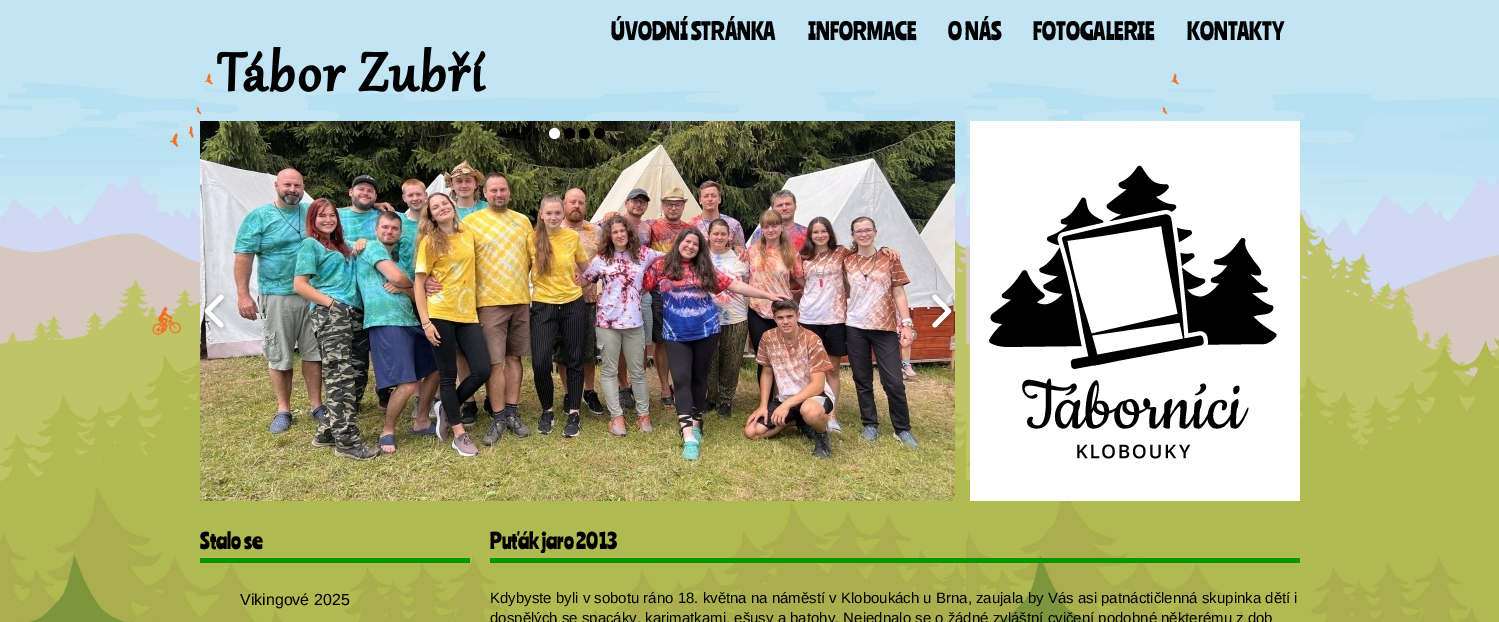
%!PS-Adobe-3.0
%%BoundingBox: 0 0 1499 622
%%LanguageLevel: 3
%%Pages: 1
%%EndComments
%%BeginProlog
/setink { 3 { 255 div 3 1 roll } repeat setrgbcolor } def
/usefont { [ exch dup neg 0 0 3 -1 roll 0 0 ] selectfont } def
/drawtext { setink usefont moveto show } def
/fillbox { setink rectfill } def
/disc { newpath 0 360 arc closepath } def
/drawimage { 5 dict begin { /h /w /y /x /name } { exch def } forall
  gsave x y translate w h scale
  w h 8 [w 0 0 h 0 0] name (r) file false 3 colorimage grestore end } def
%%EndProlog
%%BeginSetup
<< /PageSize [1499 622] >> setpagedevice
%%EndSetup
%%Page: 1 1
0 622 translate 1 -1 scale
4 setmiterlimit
0 0 1499 622 255 255 255 fillbox
(assets/img1.rgb) 0 0 1499 622 drawimage
(ÚVODNÍ STRÁNKA) 611 40 /Ranchers-Regular 23 0 0 0 drawtext
(INFORMACE) 808 40 /Ranchers-Regular 23 0 0 0 drawtext
(O NÁS) 948 40 /Ranchers-Regular 23 0 0 0 drawtext
(FOTOGALERIE) 1033 40 /Ranchers-Regular 23 0 0 0 drawtext
(KONTAKTY) 1187 40 /Ranchers-Regular 23 0 0 0 drawtext
(assets/img2.rgb) 217 47 269 45 drawimage
(assets/img3.rgb) 200 121 755 380 drawimage
255 255 255 setink
554.5 133.5 5.5 disc fill
0 0 0 setink
569.5 133.5 5.5 disc fill
584.5 133.5 5.5 disc fill
599.5 133.5 5.5 disc fill
(assets/img4.rgb) 201 292 26 40 drawimage
(assets/img5.rgb) 929 292 26 40 drawimage
(assets/img6.rgb) 970 121 330 380 drawimage
200 558 270 5 0 153 0 fillbox
gsave
200 511 270 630 rectclip
(Stalo se) 200 549 /Ranchers-Regular 21 0 0 0 drawtext
grestore
(Vikingové 2025) 240 605 /LiberationSans-Regular 16 0 0 0 drawtext
490 558 810 5 0 153 0 fillbox
(Puťák jaro 2013) 490 549 /Ranchers-Regular 21 0 0 0 drawtext
(Kdybyste byli v sobotu ráno 18. května na náměstí v Kloboukách u Brna, zaujala by Vás asi patnáctičlenná skupinka dětí i) 490 603 /LiberationSans-Regular 15 0 0 0 drawtext
(dospělých se spacáky, karimatkami, ešusy a batohy. Nejednalo se o žádné zvláštní cvičení podobné některému z dob) 490 623 /LiberationSans-Regular 15 0 0 0 drawtext
showpage
%%EOF
